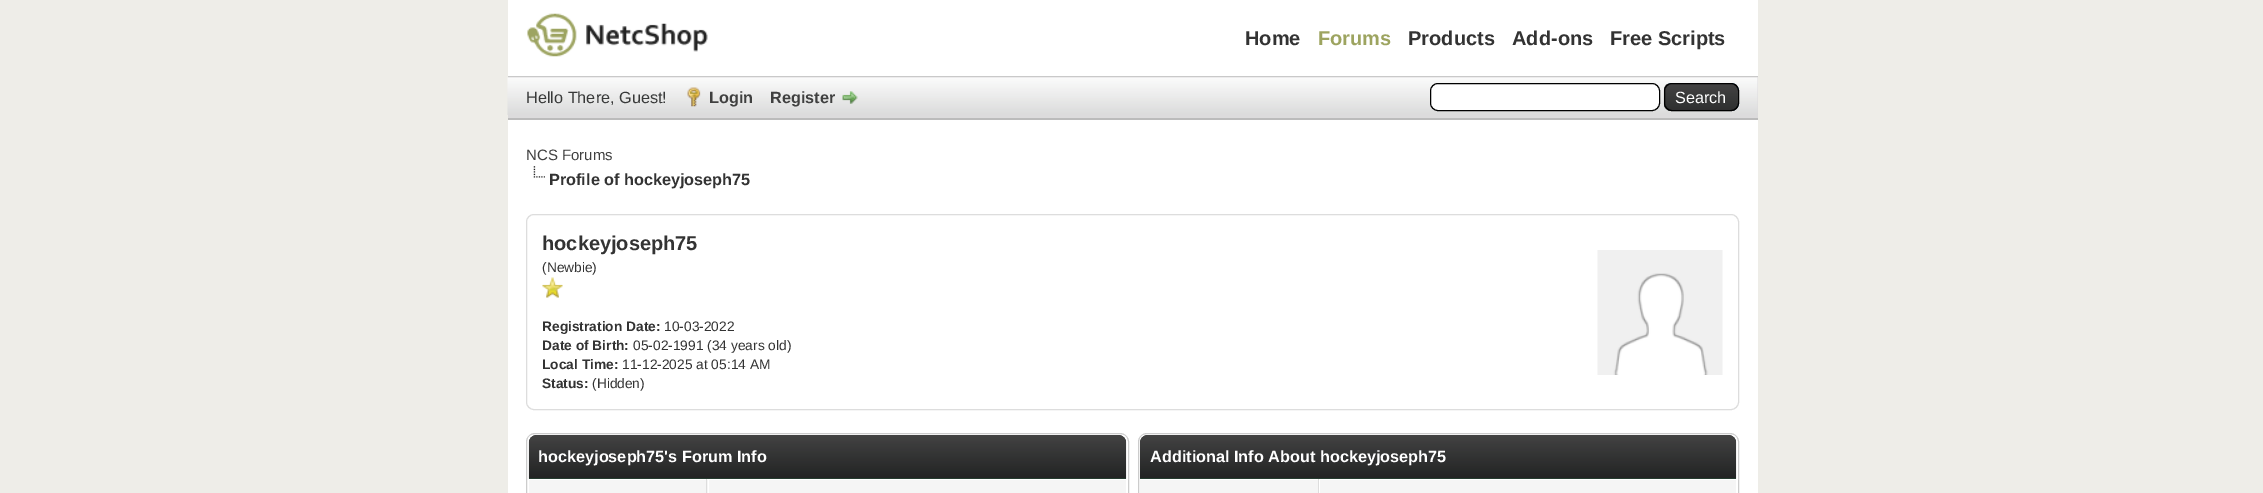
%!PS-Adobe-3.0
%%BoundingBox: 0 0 2263 493
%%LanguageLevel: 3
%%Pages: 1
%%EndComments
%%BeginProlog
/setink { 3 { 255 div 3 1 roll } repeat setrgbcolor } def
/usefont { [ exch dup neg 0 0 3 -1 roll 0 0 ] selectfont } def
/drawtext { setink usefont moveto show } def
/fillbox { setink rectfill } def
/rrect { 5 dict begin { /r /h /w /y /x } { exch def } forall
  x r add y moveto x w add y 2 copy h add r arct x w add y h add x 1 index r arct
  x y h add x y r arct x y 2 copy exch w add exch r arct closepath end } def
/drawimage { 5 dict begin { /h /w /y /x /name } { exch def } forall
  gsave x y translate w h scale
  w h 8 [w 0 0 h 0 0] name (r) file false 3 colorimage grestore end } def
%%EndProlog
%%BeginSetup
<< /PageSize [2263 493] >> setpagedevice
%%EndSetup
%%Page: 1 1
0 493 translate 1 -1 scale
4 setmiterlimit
0 0 2263 493 238 237 232 fillbox
508 0 1250 76 255 255 255 fillbox
508 118 1250 2 187 187 187 fillbox
(assets/img1.rgb) 527 13 181 44 drawimage
(Home) 1245 45 /LiberationSans-Bold 20 51 51 51 drawtext
(Forums) 1318 45 /LiberationSans-Bold 20 157 164 96 drawtext
(Products) 1408 45 /LiberationSans-Bold 20 51 51 51 drawtext
(Add-ons) 1512 45 /LiberationSans-Bold 20 51 51 51 drawtext
(Free Scripts) 1610 45 /LiberationSans-Bold 20 51 51 51 drawtext
508 77 1250 41 220 219 220 fillbox
(assets/img2.rgb) 507 77 1251 38 drawimage
508 76 1250 1 201 201 201 fillbox
(Hello There, Guest!) 526 103 /LiberationSans-Regular 16.25 56 57 57 drawtext
(assets/img3.rgb) 687 87 14 20 drawimage
(Login) 709 103 /LiberationSans-Bold 16.25 64 64 64 drawtext
(Register) 770 103 /LiberationSans-Bold 16.25 64 64 64 drawtext
(assets/img4.rgb) 842 91 16 13 drawimage
255 255 255 setink
1430.5 83.5 229 27 7.5 rrect gsave fill grestore
0 0 0 setink
stroke
(assets/img5.rgb) 1663 83 76 29 drawimage
1664.5 83.5 74 27 7.5 rrect stroke
(Search) 1675 103 /LiberationSans-Regular 16.25 255 255 255 drawtext
508 120 1250 373 255 255 255 fillbox
(NCS Forums) 526 160 /LiberationSans-Regular 15 64 64 64 drawtext
(assets/img6.rgb) 533 166 12 12 drawimage
(Profile of hockeyjoseph75) 549 185 /LiberationSans-Bold 16.25 51 51 51 drawtext
221 221 221 setink
526.5 214.5 1212 195 7.5 rrect stroke
(hockeyjoseph75) 542 250 /LiberationSans-Bold 20 51 51 51 drawtext
(\(Newbie\)) 542 272 /LiberationSans-Regular 13.75 51 51 51 drawtext
(assets/img7.rgb) 542 277 21 21 drawimage
(Registration Date:) 542 331 /LiberationSans-Bold 13.75 51 51 51 drawtext
(10-03-2022) 664 331 /LiberationSans-Regular 13.75 51 51 51 drawtext
(Date of Birth:) 542 350 /LiberationSans-Bold 13.75 51 51 51 drawtext
(05-02-1991 \(34 years old\)) 633 350 /LiberationSans-Regular 13.75 51 51 51 drawtext
(Local Time:) 542 369 /LiberationSans-Bold 13.75 51 51 51 drawtext
(11-12-2025 at 05:14 AM) 622 369 /LiberationSans-Regular 13.75 51 51 51 drawtext
(Status:) 542 388 /LiberationSans-Bold 13.75 51 51 51 drawtext
(\(Hidden\)) 592 388 /LiberationSans-Regular 13.75 51 51 51 drawtext
(assets/img8.rgb) 1597 250 126 125 drawimage
204 204 204 setink
526.5 433.5 602 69 8.5 rrect stroke
(assets/img9.rgb) 528 435 599 44 drawimage
529 478 597 1 38 60 48 fillbox
(hockeyjoseph75's Forum Info) 538 462 /LiberationSans-Bold 16.25 255 255 255 drawtext
529 480 179 13 245 245 245 fillbox
706 479 1 14 221 221 221 fillbox
709 480 417 13 245 245 245 fillbox
204 204 204 setink
1138.5 433.5 600 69 8.5 rrect stroke
(assets/img10.rgb) 1140 435 597 44 drawimage
1140 478 596 1 38 60 48 fillbox
(Additional Info About hockeyjoseph75) 1150 462 /LiberationSans-Bold 16.25 255 255 255 drawtext
1140 480 178 13 245 245 245 fillbox
1318 479 1 14 221 221 221 fillbox
1320 480 416 13 245 245 245 fillbox
showpage
%%EOF
